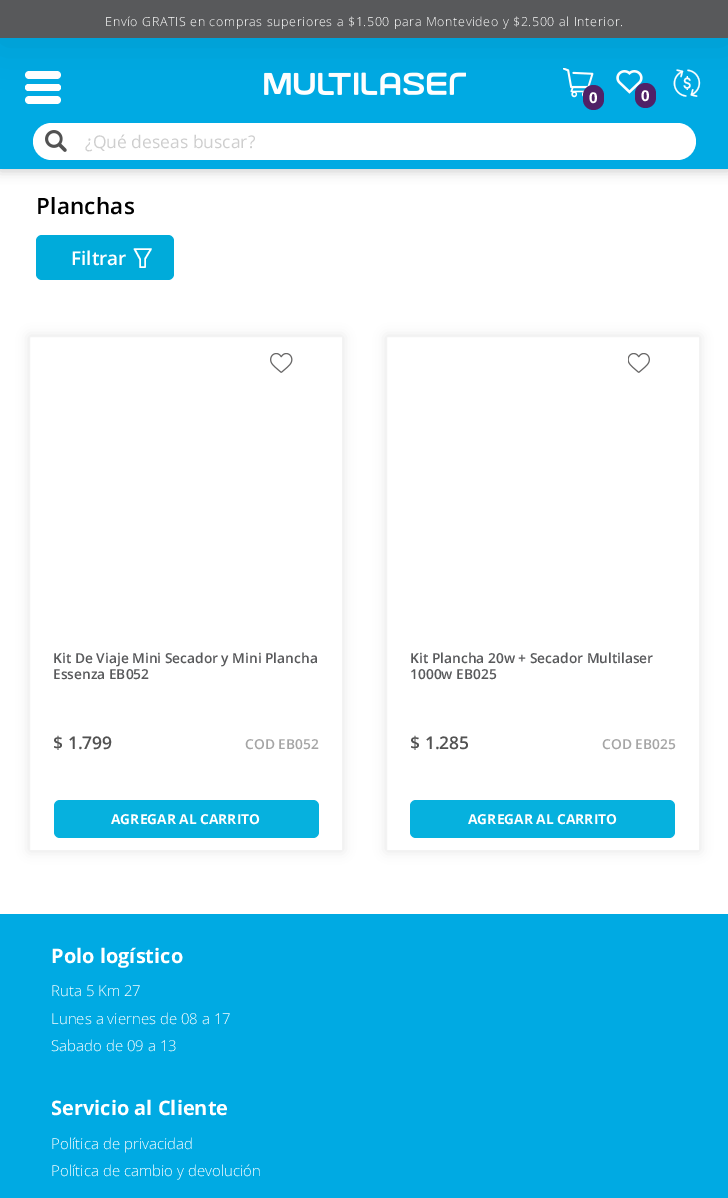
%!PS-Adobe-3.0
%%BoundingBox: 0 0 728 1198
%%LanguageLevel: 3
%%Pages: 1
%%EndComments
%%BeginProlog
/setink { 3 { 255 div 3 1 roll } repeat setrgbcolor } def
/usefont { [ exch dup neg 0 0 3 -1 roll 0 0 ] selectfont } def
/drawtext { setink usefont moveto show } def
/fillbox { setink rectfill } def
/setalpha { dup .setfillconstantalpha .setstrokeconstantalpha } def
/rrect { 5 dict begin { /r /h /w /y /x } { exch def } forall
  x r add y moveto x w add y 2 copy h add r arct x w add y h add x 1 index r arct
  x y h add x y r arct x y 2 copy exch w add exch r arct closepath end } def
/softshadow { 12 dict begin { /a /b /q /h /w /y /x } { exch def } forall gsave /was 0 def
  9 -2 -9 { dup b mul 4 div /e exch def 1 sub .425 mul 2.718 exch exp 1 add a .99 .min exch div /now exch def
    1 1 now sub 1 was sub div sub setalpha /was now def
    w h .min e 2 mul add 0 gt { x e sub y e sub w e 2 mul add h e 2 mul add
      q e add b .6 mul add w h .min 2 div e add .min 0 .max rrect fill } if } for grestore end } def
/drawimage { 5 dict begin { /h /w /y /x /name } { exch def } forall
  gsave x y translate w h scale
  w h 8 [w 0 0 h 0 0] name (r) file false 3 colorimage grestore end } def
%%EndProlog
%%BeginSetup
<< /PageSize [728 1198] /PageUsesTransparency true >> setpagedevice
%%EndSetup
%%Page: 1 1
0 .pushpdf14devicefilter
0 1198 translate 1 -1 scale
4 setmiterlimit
0 0 728 1198 255 255 255 fillbox
0 0 0 setink
0 3 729 168 0 6 0.2 softshadow
0 38 728 131 0 170 227 fillbox
255 255 255 setink
29 71 moveto 48 71 lineto 48 79 lineto 29 79 lineto 27 79 25 77 25 75 curveto 25 73 27 71 29 71 curveto closepath fill
39 71 moveto 57 71 lineto 59 71 61 73 61 75 curveto 61 77 59 79 57 79 curveto 39 79 lineto closepath fill
28.5 84 moveto 48 84 lineto 48 91 lineto 28.5 91 lineto 26.5 91 25 89.5 25 87.5 curveto 25 85.5 26.5 84 28.5 84 curveto closepath fill
39 84 moveto 57.5 84 lineto 59.5 84 61 85.5 61 87.5 curveto 61 89.5 59.5 91 57.5 91 curveto 39 91 lineto closepath fill
29 96 moveto 48 96 lineto 48 104 lineto 29 104 lineto 27 104 25 102 25 100 curveto 25 98 27 96 29 96 curveto closepath fill
39 96 moveto 57 96 lineto 59 96 61 98 61 100 curveto 61 102 59 104 57 104 curveto 39 104 lineto closepath fill
(assets/img1.rgb) 264 72 202 23 drawimage
(assets/img2.rgb) 563 68 31 30 drawimage
80 33 103 setink
583 85 21 25 10.5 rrect fill
(assets/img3.rgb) 616 70 27 24 drawimage
635 83 21 25 10.5 rrect fill
(assets/img4.rgb) 673 69 28 28 drawimage
0 0 0 setink
0 5 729 38 0 21 0.09 softshadow
0 0 728 38 88 89 91 fillbox
/OpenSans-Light 12.5 usefont
255 255 255 setink
105 26 moveto 0.62 0 (Envío GRATIS en compras superiores a $1.500 para Montevideo y $2.500 al Interior.) ashow
(0) 589 103 /OpenSans-Bold 15 255 255 255 drawtext
(0) 641 101 /OpenSans-Bold 15 255 255 255 drawtext
33 123 663 37 18.5 rrect fill
(assets/img5.rgb) 45 130 22 22 drawimage
(¿Qué deseas buscar?) 85 148 /OpenSans-Regular 17.5 206 206 206 drawtext
/OpenSans-SemiBold 22.5 usefont
0 0 0 setink
36 214 moveto 0.25 0 (Planchas) ashow
0 171 218 setink
36 235 138 45 6 rrect fill
(Filtrar) 71 265 /OpenSans-SemiBold 19 255 255 255 drawtext
1.6 setlinewidth
1 setlinejoin
151 249 moveto 134.5 249 lineto 140 259 lineto 140 267 lineto 145 267 lineto 145 259 lineto closepath stroke
gsave
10 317 moveto 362 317 lineto 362 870 lineto 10 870 lineto closepath 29 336 moveto 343 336 lineto 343 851 lineto 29 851 lineto closepath eoclip newpath
0 0 0 setink
29 336 314 515 0 6 0.1 softshadow
grestore
243 243 243 setink
1 setlinewidth
0 setlinejoin
29.5 336.5 313 514 rectstroke
(assets/img6.rgb) 270 353 23 20 drawimage
(K) 53 663 /NotoSans-SemiBold 13.75 88 89 91 drawtext
(it De Viaje Mini Secador y Mini Plancha) 62 663 /OpenSans-SemiBold 13.75 88 89 91 drawtext
(Essenza EB052) 53 679 /OpenSans-SemiBold 13.75 88 89 91 drawtext
($ 1.799) 53 749 /OpenSans-SemiBold 17.5 82 82 82 drawtext
(COD EB052) 245 749 /OpenSans-SemiBold 13.75 165 165 165 drawtext
6 177 222 setink
54 800 265 38 6 rrect fill
(AGREGAR AL CARRITO) 111 824 /OpenSans-Bold 13.75 255 255 255 drawtext
gsave
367 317 moveto 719 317 lineto 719 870 lineto 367 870 lineto closepath 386 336 moveto 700 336 lineto 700 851 lineto 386 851 lineto closepath eoclip newpath
0 0 0 setink
386 336 314 515 0 6 0.1 softshadow
grestore
243 243 243 setink
386.5 336.5 313 514 rectstroke
(assets/img7.rgb) 628 353 22 20 drawimage
(K) 410 663 /NotoSans-SemiBold 13.75 88 89 91 drawtext
(it Plancha 20w + Secador Multilaser) 419 663 /OpenSans-SemiBold 13.75 88 89 91 drawtext
(1000w EB025) 410 679 /OpenSans-SemiBold 13.75 88 89 91 drawtext
($ 1.285) 410 749 /OpenSans-SemiBold 17.5 82 82 82 drawtext
(COD EB025) 602 749 /OpenSans-SemiBold 13.75 165 165 165 drawtext
6 177 222 setink
410 800 265 38 6 rrect fill
(AGREGAR AL CARRITO) 468 824 /OpenSans-Bold 13.75 255 255 255 drawtext
0 914 728 284 0 170 227 fillbox
(Polo logístico) 51 963 /OpenSans-Bold 20 255 255 255 drawtext
(Ruta 5 Km 27) 51 996 /OpenSans-Light 15 255 255 255 drawtext
(Lunes a viernes de 08 a 17) 51 1024 /OpenSans-Light 15 255 255 255 drawtext
(Sabado de 09 a 13) 51 1051 /OpenSans-Light 15 255 255 255 drawtext
(Servicio al Cliente) 51 1115 /OpenSans-Bold 20 255 255 255 drawtext
(Política de privacidad) 51 1149 /OpenSans-Light 15 255 255 255 drawtext
(Política de cambio y devolución) 51 1176 /OpenSans-Light 15 255 255 255 drawtext
.poppdf14devicefilter showpage
%%EOF
